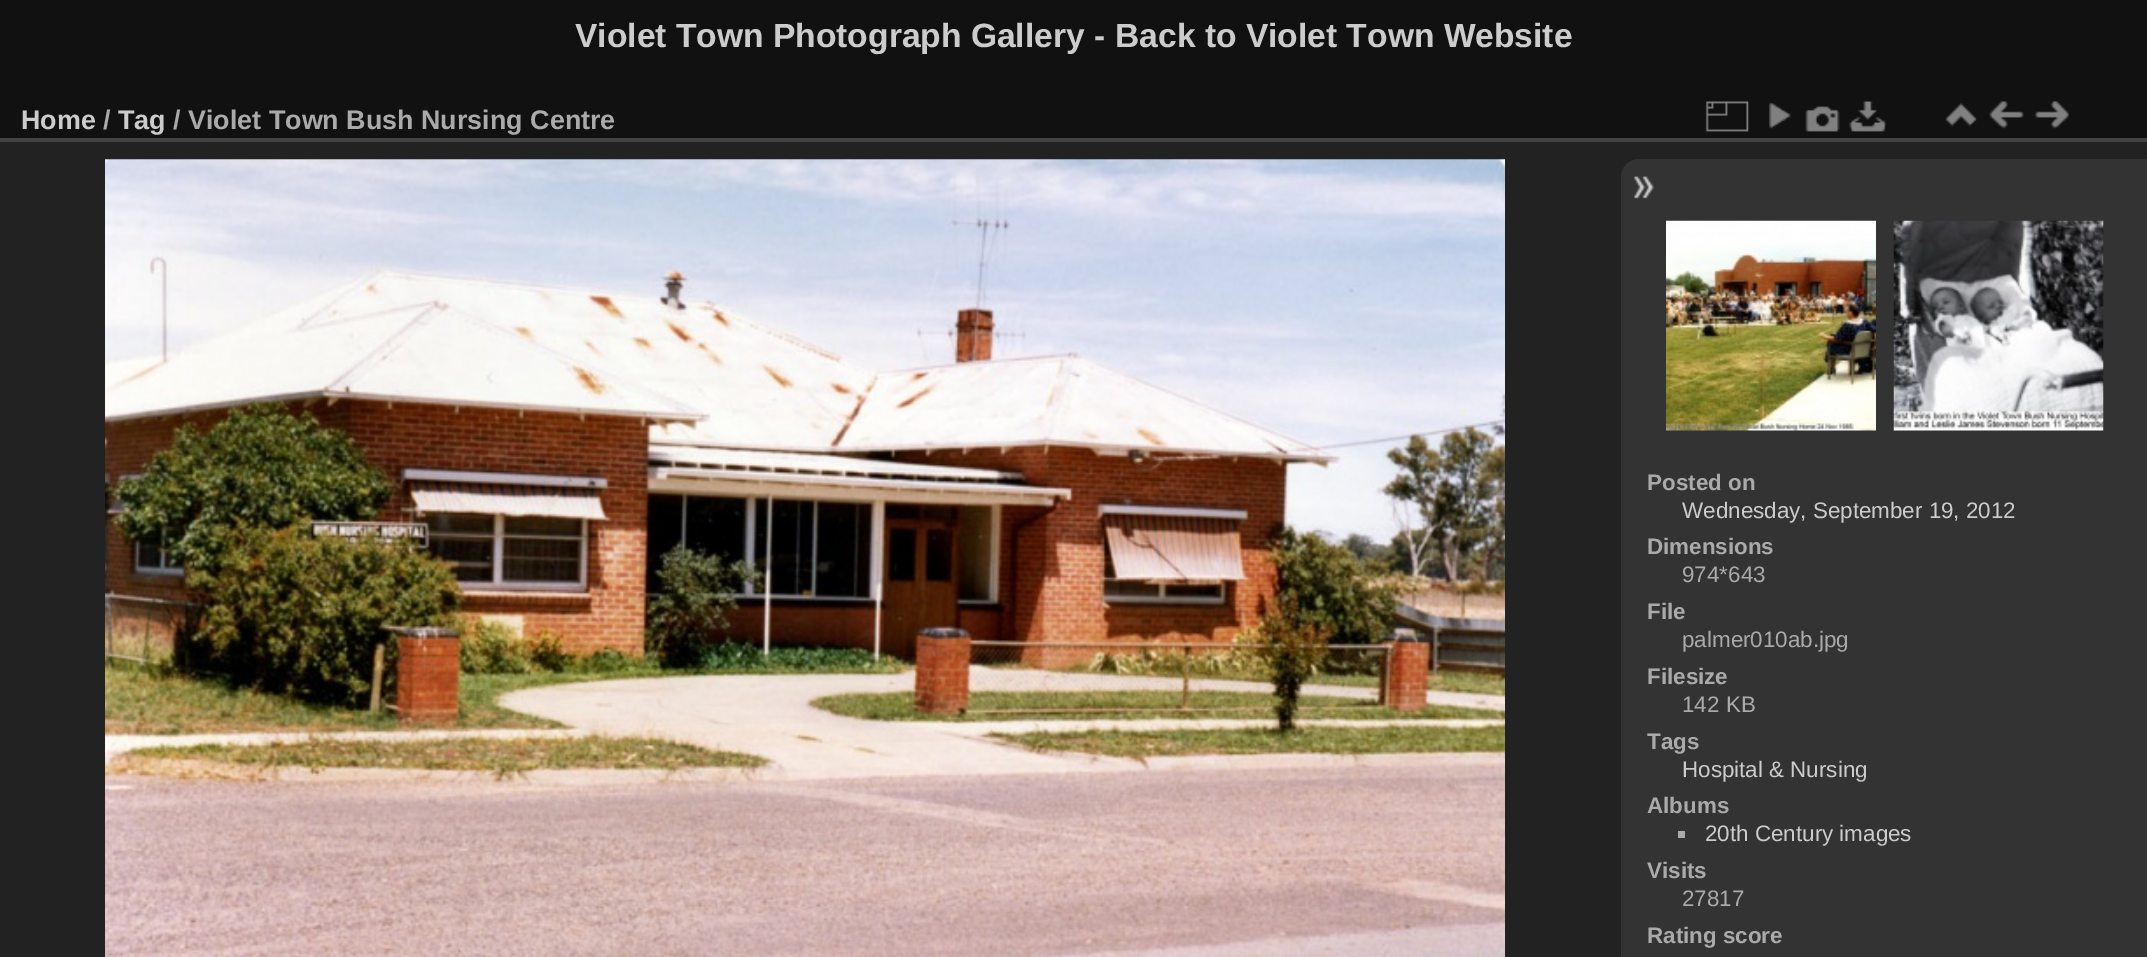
%!PS-Adobe-3.0
%%BoundingBox: 0 0 2147 957
%%LanguageLevel: 3
%%Pages: 1
%%EndComments
%%BeginProlog
/setink { 3 { 255 div 3 1 roll } repeat setrgbcolor } def
/usefont { [ exch dup neg 0 0 3 -1 roll 0 0 ] selectfont } def
/drawtext { setink usefont moveto show } def
/fillbox { setink rectfill } def
/drawimage { 5 dict begin { /h /w /y /x /name } { exch def } forall
  gsave x y translate w h scale
  w h 8 [w 0 0 h 0 0] name (r) file false 3 colorimage grestore end } def
%%EndProlog
%%BeginSetup
<< /PageSize [2147 957] >> setpagedevice
%%EndSetup
%%Page: 1 1
0 957 translate 1 -1 scale
4 setmiterlimit
0 0 2147 957 17 17 17 fillbox
(Violet Town Photograph Gallery -) 575 47 /LiberationSans-Bold 33.6 204 204 204 drawtext
(Back to Violet Town Website) 1115 47 /LiberationSans-Bold 33.6 204 204 204 drawtext
0 142 2147 815 34 34 34 fillbox
0 138 2147 4 68 68 68 fillbox
(Home) 21 129 /LiberationSans-Bold 26.9 204 204 204 drawtext
(/) 103 129 /LiberationSans-Bold 26.9 170 170 170 drawtext
(Tag) 118 129 /LiberationSans-Bold 26.9 204 204 204 drawtext
(/ Violet Town Bush Nursing Centre) 173 129 /LiberationSans-Bold 26.9 170 170 170 drawtext
(assets/img1.rgb) 1705 101 44 31 drawimage
(assets/img2.rgb) 1769 102 22 27 drawimage
(assets/img3.rgb) 1805 106 35 26 drawimage
(assets/img4.rgb) 1849 101 38 31 drawimage
(assets/img5.rgb) 1945 103 32 24 drawimage
(assets/img6.rgb) 1989 101 35 28 drawimage
(assets/img7.rgb) 2035 101 34 28 drawimage
(assets/img8.rgb) 105 159 1400 798 drawimage
51 51 51 setink
1639 159 moveto 2147 159 lineto 2147 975 lineto 1639 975 lineto 1629 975 1621 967 1621 957 curveto 1621 177 lineto 1621 167 1629 159 1639 159 curveto closepath fill
(assets/img9.rgb) 1633 176 22 23 drawimage
(assets/img10.rgb) 1666 220 210 211 drawimage
(assets/img11.rgb) 1893 220 211 211 drawimage
(Posted on) 1647 490 /LiberationSans-Bold 22.4 170 170 170 drawtext
(Wednesday, September 19, 2012) 1682 518 /LiberationSans-Regular 22.4 204 204 204 drawtext
(Dimensions) 1647 554 /LiberationSans-Bold 22.4 170 170 170 drawtext
(974*643) 1682 582 /LiberationSans-Regular 22.4 170 170 170 drawtext
(File) 1647 619 /LiberationSans-Bold 22.4 170 170 170 drawtext
(palmer010ab.jpg) 1682 647 /LiberationSans-Regular 22.4 170 170 170 drawtext
(Filesize) 1647 684 /LiberationSans-Bold 22.4 170 170 170 drawtext
(142 KB) 1682 712 /LiberationSans-Regular 22.4 170 170 170 drawtext
(Tags) 1647 749 /LiberationSans-Bold 22.4 170 170 170 drawtext
(Hospital & Nursing) 1682 777 /LiberationSans-Regular 22.4 204 204 204 drawtext
(Albums) 1647 813 /LiberationSans-Bold 22.4 170 170 170 drawtext
1678 831 7 7 170 170 170 fillbox
(20th Century images) 1705 841 /LiberationSans-Regular 22.4 204 204 204 drawtext
(Visits) 1647 878 /LiberationSans-Bold 22.4 170 170 170 drawtext
(27817) 1682 906 /LiberationSans-Regular 22.4 170 170 170 drawtext
(Rating score) 1647 943 /LiberationSans-Bold 22.4 170 170 170 drawtext
showpage
%%EOF
